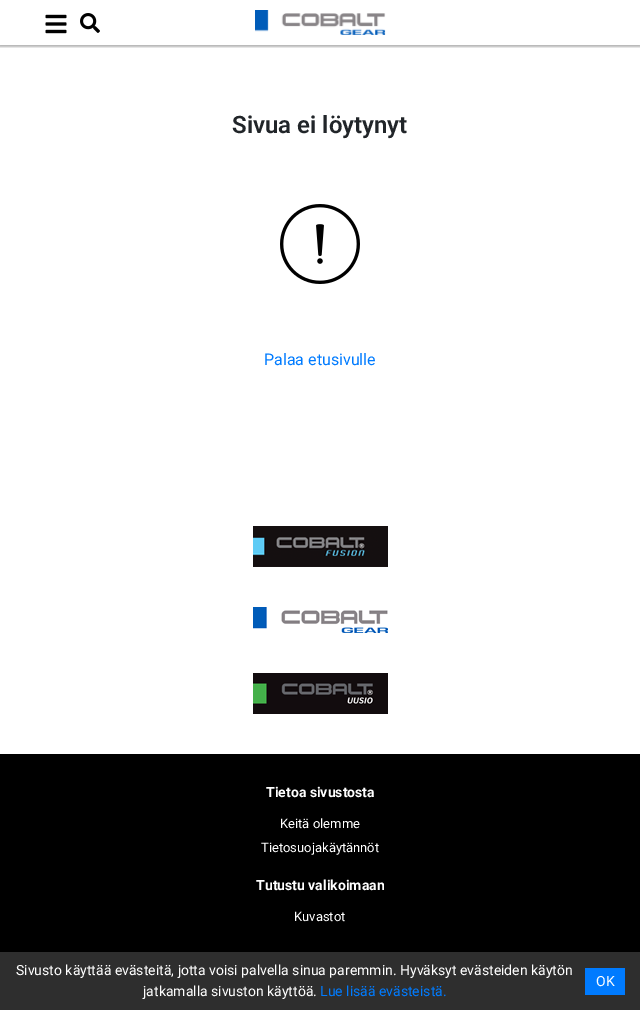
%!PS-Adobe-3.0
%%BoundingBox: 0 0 640 1010
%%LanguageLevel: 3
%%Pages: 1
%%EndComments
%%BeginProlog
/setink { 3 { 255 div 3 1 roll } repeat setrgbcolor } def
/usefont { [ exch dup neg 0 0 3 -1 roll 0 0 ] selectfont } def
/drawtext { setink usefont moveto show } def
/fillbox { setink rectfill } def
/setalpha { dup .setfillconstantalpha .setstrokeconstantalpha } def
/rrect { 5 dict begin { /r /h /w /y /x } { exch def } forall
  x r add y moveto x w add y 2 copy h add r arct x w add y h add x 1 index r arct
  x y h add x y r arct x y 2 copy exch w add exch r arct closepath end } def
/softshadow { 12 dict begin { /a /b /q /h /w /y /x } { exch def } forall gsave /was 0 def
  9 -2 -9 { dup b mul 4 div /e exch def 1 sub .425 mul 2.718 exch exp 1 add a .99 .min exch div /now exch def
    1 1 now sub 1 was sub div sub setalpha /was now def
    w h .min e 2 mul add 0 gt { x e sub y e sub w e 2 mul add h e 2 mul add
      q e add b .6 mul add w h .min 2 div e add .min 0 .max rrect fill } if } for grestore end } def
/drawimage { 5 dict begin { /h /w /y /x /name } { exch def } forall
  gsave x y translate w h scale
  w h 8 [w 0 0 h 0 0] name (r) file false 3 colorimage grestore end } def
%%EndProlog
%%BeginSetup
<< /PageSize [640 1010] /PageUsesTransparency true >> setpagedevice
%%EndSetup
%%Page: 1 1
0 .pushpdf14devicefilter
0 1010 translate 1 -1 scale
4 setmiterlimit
0 0 640 1010 255 255 255 fillbox
gsave
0 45 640 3 rectclip
0 0 0 setink
-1 0 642 47 0 1 0.3 softshadow
grestore
(assets/img1.rgb) 45 14 22 20 drawimage
(assets/img2.rgb) 80 13 20 20 drawimage
(assets/img3.rgb) 255 10 131 25 drawimage
(Sivua ei löytynyt) 232 133 /Roboto-SemiBold 24 33 37 41 drawtext
(assets/img4.rgb) 280 204 80 80 drawimage
(Palaa etusivulle) 264 365 /Roboto-Regular 16 0 123 255 drawtext
0 754 640 198 0 0 0 fillbox
(assets/img5.rgb) 253 526 135 41 drawimage
(assets/img6.rgb) 253 607 135 26 drawimage
(assets/img7.rgb) 253 673 135 41 drawimage
(Tietoa sivustosta) 266 797 /Roboto-Bold 14 255 255 255 drawtext
(Keitä olemme) 280 828 /Roboto-Regular 13 255 255 255 drawtext
(Tietosuojakäytännöt) 261 852 /Roboto-Regular 13 255 255 255 drawtext
(Tutustu valikoimaan) 256 890 /Roboto-Bold 14 255 255 255 drawtext
(Kuvastot) 294 921 /Roboto-Regular 13 255 255 255 drawtext
0 952 640 58 46 46 46 fillbox
(Sivusto käyttää evästeitä, jotta voisi palvella sinua paremmin. Hyväksyt evästeiden käytön) 16 975 /Roboto-Regular 14 255 255 255 drawtext
(jatkamalla sivuston käyttöä.) 143 996 /Roboto-Regular 14 255 255 255 drawtext
(Lue lisää evästeistä.) 320 996 /Roboto-Regular 14 0 123 255 drawtext
585 968 40 27 0 123 255 fillbox
(OK) 596 986 /Roboto-Regular 14 255 255 255 drawtext
.poppdf14devicefilter showpage
%%EOF
